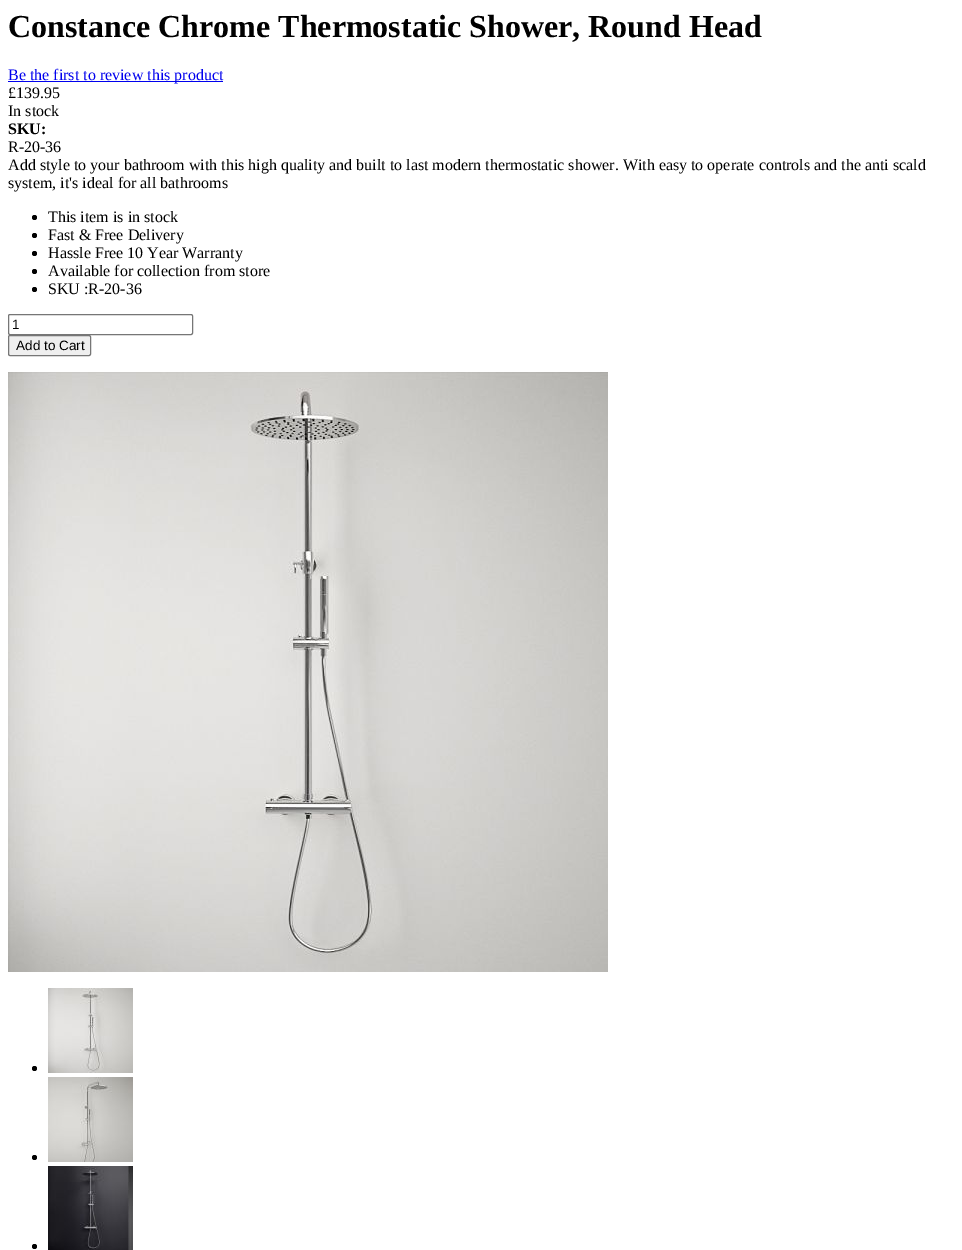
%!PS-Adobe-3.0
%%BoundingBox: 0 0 962 1250
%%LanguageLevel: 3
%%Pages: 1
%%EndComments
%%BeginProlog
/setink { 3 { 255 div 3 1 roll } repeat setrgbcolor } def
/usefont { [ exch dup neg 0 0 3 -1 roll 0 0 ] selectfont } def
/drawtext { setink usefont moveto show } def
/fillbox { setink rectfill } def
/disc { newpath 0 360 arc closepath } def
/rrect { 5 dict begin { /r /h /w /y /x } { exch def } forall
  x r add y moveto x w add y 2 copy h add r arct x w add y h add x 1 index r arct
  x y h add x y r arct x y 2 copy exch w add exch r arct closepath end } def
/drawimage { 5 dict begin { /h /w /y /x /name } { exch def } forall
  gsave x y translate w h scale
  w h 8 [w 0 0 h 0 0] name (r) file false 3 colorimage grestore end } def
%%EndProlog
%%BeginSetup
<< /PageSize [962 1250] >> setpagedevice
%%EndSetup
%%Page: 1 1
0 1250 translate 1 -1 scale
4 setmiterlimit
0 0 962 1250 255 255 255 fillbox
(Constance Chrome Thermostatic Shower, Round Head) 8 37 /LiberationSerif-Bold 32 0 0 0 drawtext
8 81 215 1 0 0 238 fillbox
(Be the first to review this product) 8 80 /LiberationSerif-Regular 16 0 0 238 drawtext
(£139.95) 8 98 /LiberationSerif-Regular 16 0 0 0 drawtext
(In stock) 8 116 /LiberationSerif-Regular 16 0 0 0 drawtext
(SKU:) 8 134 /LiberationSerif-Bold 16 0 0 0 drawtext
(R-20-36) 8 152 /LiberationSerif-Regular 16 0 0 0 drawtext
(Add style to your bathroom with this high quality and built to last modern thermostatic shower. With easy to operate controls and the anti scald) 8 170 /LiberationSerif-Regular 16 0 0 0 drawtext
(system, it's ideal for all bathrooms) 8 188 /LiberationSerif-Regular 16 0 0 0 drawtext
34.5 217.5 2.5 disc fill
(This item is in stock) 48 222 /LiberationSerif-Regular 16 0 0 0 drawtext
34.5 235.5 2.5 disc fill
(Fast & Free Delivery) 48 240 /LiberationSerif-Regular 16 0 0 0 drawtext
34.5 253.5 2.5 disc fill
(Hassle Free 10 Year Warranty) 48 258 /LiberationSerif-Regular 16 0 0 0 drawtext
34.5 271.5 2.5 disc fill
(Available for collection from store) 48 276 /LiberationSerif-Regular 16 0 0 0 drawtext
34.5 289.5 2.5 disc fill
(SKU :R-20-36) 48 294 /LiberationSerif-Regular 16 0 0 0 drawtext
118 118 118 setink
8.5 314.5 184 20 1.5 rrect stroke
(1) 12 329 /LiberationSans-Regular 13.5 0 0 0 drawtext
239 239 239 setink
8.5 335.5 82 20 1.5 rrect gsave fill grestore
118 118 118 setink
stroke
(Add to Cart) 16 350 /LiberationSans-Regular 13.5 0 0 0 drawtext
(assets/img1.rgb) 8 372 600 600 drawimage
34.5 1068.5 2.5 disc fill
(assets/img2.rgb) 48 988 85 85 drawimage
34.5 1157.5 2.5 disc fill
(assets/img3.rgb) 48 1077 85 85 drawimage
34.5 1246.5 2.5 disc fill
(assets/img4.rgb) 48 1166 85 84 drawimage
showpage
%%EOF
